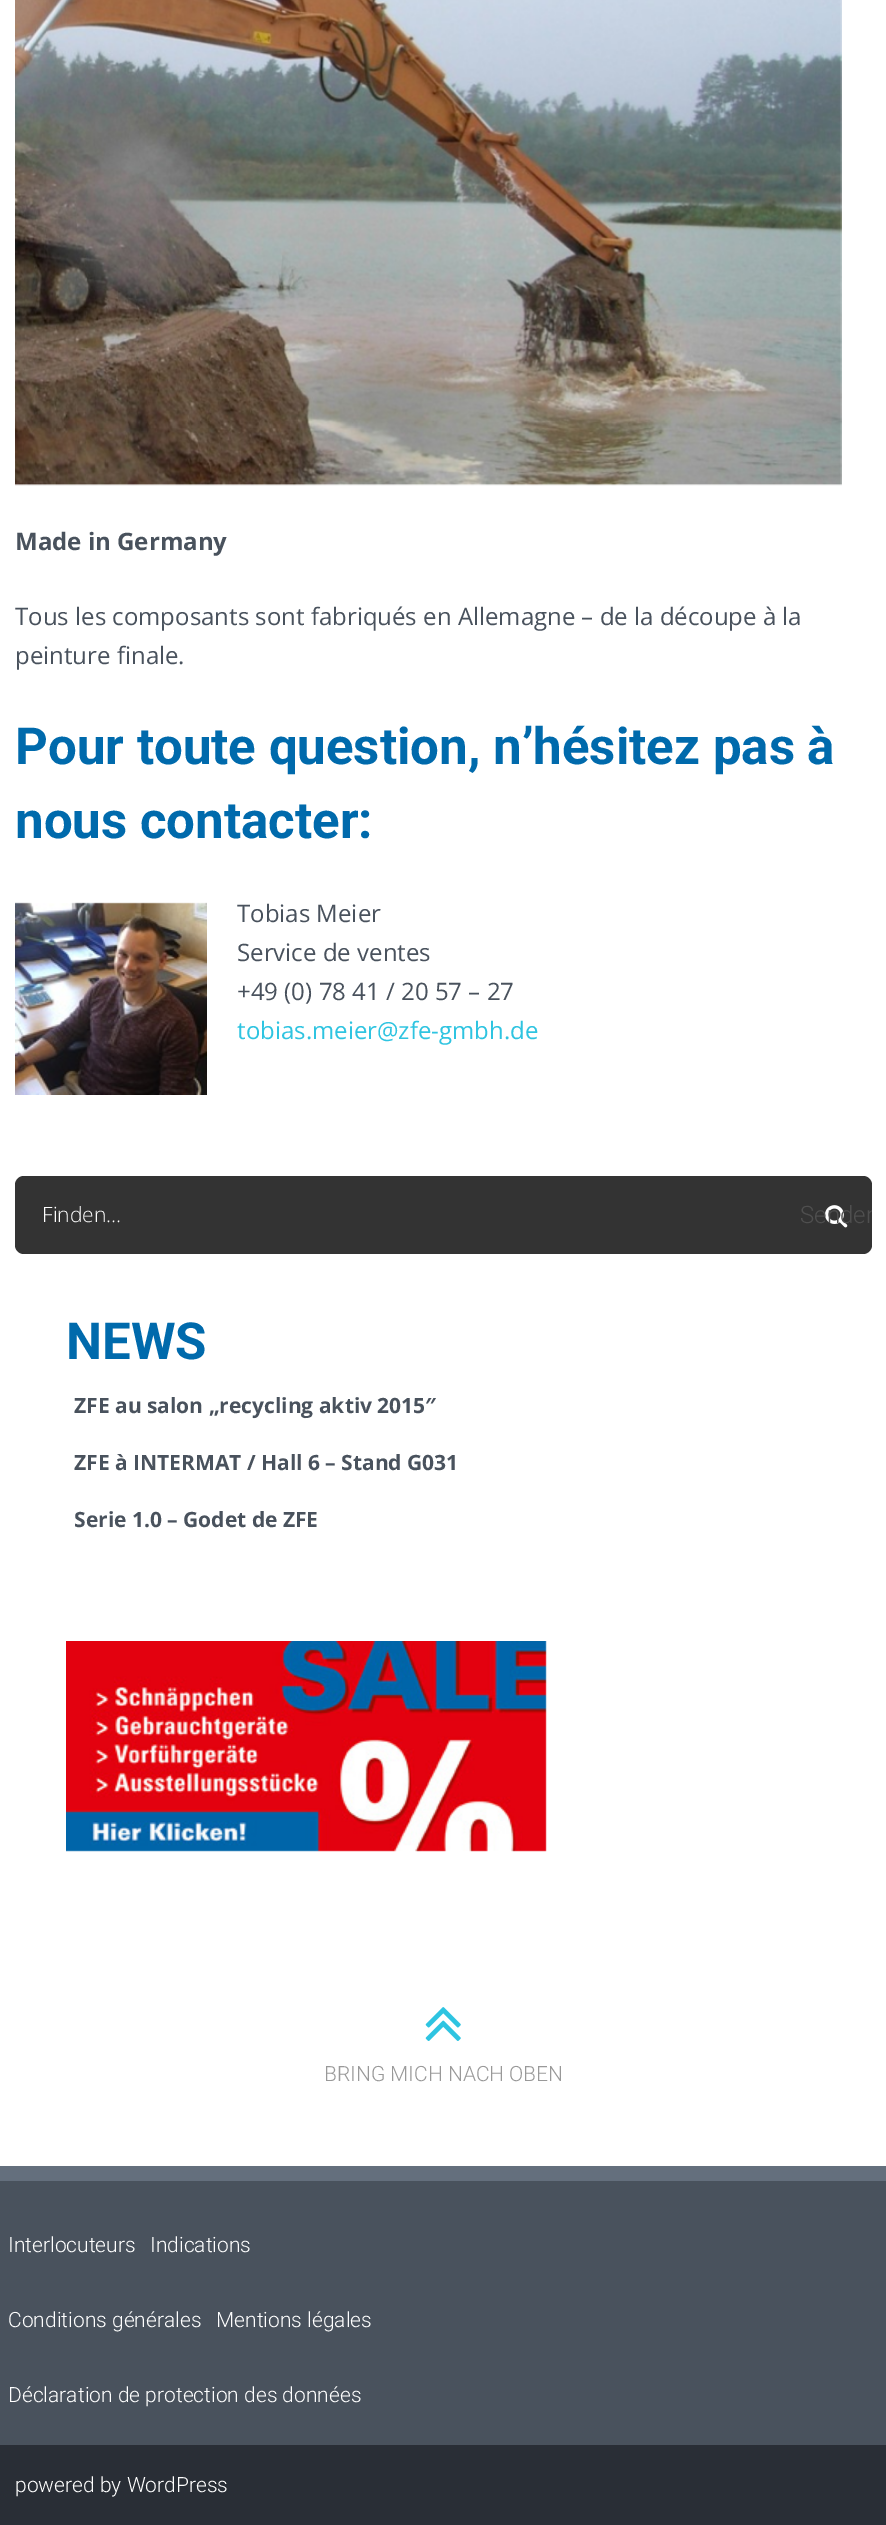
%!PS-Adobe-3.0
%%BoundingBox: 0 0 886 2525
%%LanguageLevel: 3
%%Pages: 1
%%EndComments
%%BeginProlog
/setink { 3 { 255 div 3 1 roll } repeat setrgbcolor } def
/usefont { [ exch dup neg 0 0 3 -1 roll 0 0 ] selectfont } def
/drawtext { setink usefont moveto show } def
/fillbox { setink rectfill } def
/rrect { 5 dict begin { /r /h /w /y /x } { exch def } forall
  x r add y moveto x w add y 2 copy h add r arct x w add y h add x 1 index r arct
  x y h add x y r arct x y 2 copy exch w add exch r arct closepath end } def
/drawimage { 5 dict begin { /h /w /y /x /name } { exch def } forall
  gsave x y translate w h scale
  w h 8 [w 0 0 h 0 0] name (r) file false 3 colorimage grestore end } def
%%EndProlog
%%BeginSetup
<< /PageSize [886 2525] >> setpagedevice
%%EndSetup
%%Page: 1 1
0 2525 translate 1 -1 scale
4 setmiterlimit
0 0 886 2525 255 255 255 fillbox
(assets/img1.rgb) 15 0 827 486 drawimage
(Made in Germany) 15 550 /OpenSans-Bold 24 73 82 93 drawtext
(Tous les composants sont fabriqués en Allemagne – de la découpe à la) 15 625 /OpenSans-Regular 24 73 82 93 drawtext
(peinture finale.) 15 664 /OpenSans-Regular 24 73 82 93 drawtext
(Pour toute question, n’hésitez pas à) 15 764 /Roboto-Bold 51 0 106 172 drawtext
(nous contacter:) 15 838 /Roboto-Bold 51 0 106 172 drawtext
(assets/img2.rgb) 15 902 192 193 drawimage
(Tobias Meier) 237 922 /OpenSans-Regular 24 73 82 93 drawtext
(Service de ventes) 237 961 /OpenSans-Regular 24 73 82 93 drawtext
(+49 \(0\) 78 41 / 20 57 – 27) 237 1000 /OpenSans-Regular 24 73 82 93 drawtext
(tobias.meier@zfe-gmbh.de) 237 1039 /OpenSans-Regular 24 46 196 225 drawtext
51 51 51 setink
15 1176 857 78 9 rrect fill
(Finden…) 42 1222 /OpenSans-Light 21 255 255 255 drawtext
(assets/img3.rgb) 825 1205 23 23 drawimage
gsave
800 1176 72 78 rectclip
(Senden) 800 1223 /Roboto-Light 24 79 79 79 drawtext
grestore
(NEWS) 66 1359 /Roboto-Bold 51 0 106 172 drawtext
(ZFE au salon „recycling aktiv 2015″) 74 1413 /OpenSans-Bold 21 73 82 93 drawtext
(ZFE à INTERMAT / Hall 6 – Stand G031) 74 1470 /OpenSans-Bold 21 73 82 93 drawtext
(Serie 1.0 – Godet de ZFE) 74 1527 /OpenSans-Bold 21 73 82 93 drawtext
(assets/img4.rgb) 66 1641 481 211 drawimage
(assets/img5.rgb) 425 2007 36 34 drawimage
(BRING MICH NACH OBEN) 324 2081 /Roboto-Light 21 153 153 153 drawtext
0 2181 886 264 73 82 93 fillbox
0 2166 886 15 100 111 125 fillbox
(Interlocuteurs) 8 2252 /Roboto-Light 21 255 255 255 drawtext
(Indications) 150 2252 /Roboto-Light 21 255 255 255 drawtext
(Conditions générales) 8 2327 /Roboto-Light 21 255 255 255 drawtext
(Mentions légales) 216 2327 /Roboto-Light 21 255 255 255 drawtext
(Déclaration de protection des données) 8 2402 /Roboto-Light 21 255 255 255 drawtext
0 2445 886 80 41 46 54 fillbox
(powered by WordPress) 15 2492 /Roboto-Light 21 255 255 255 drawtext
showpage
%%EOF
